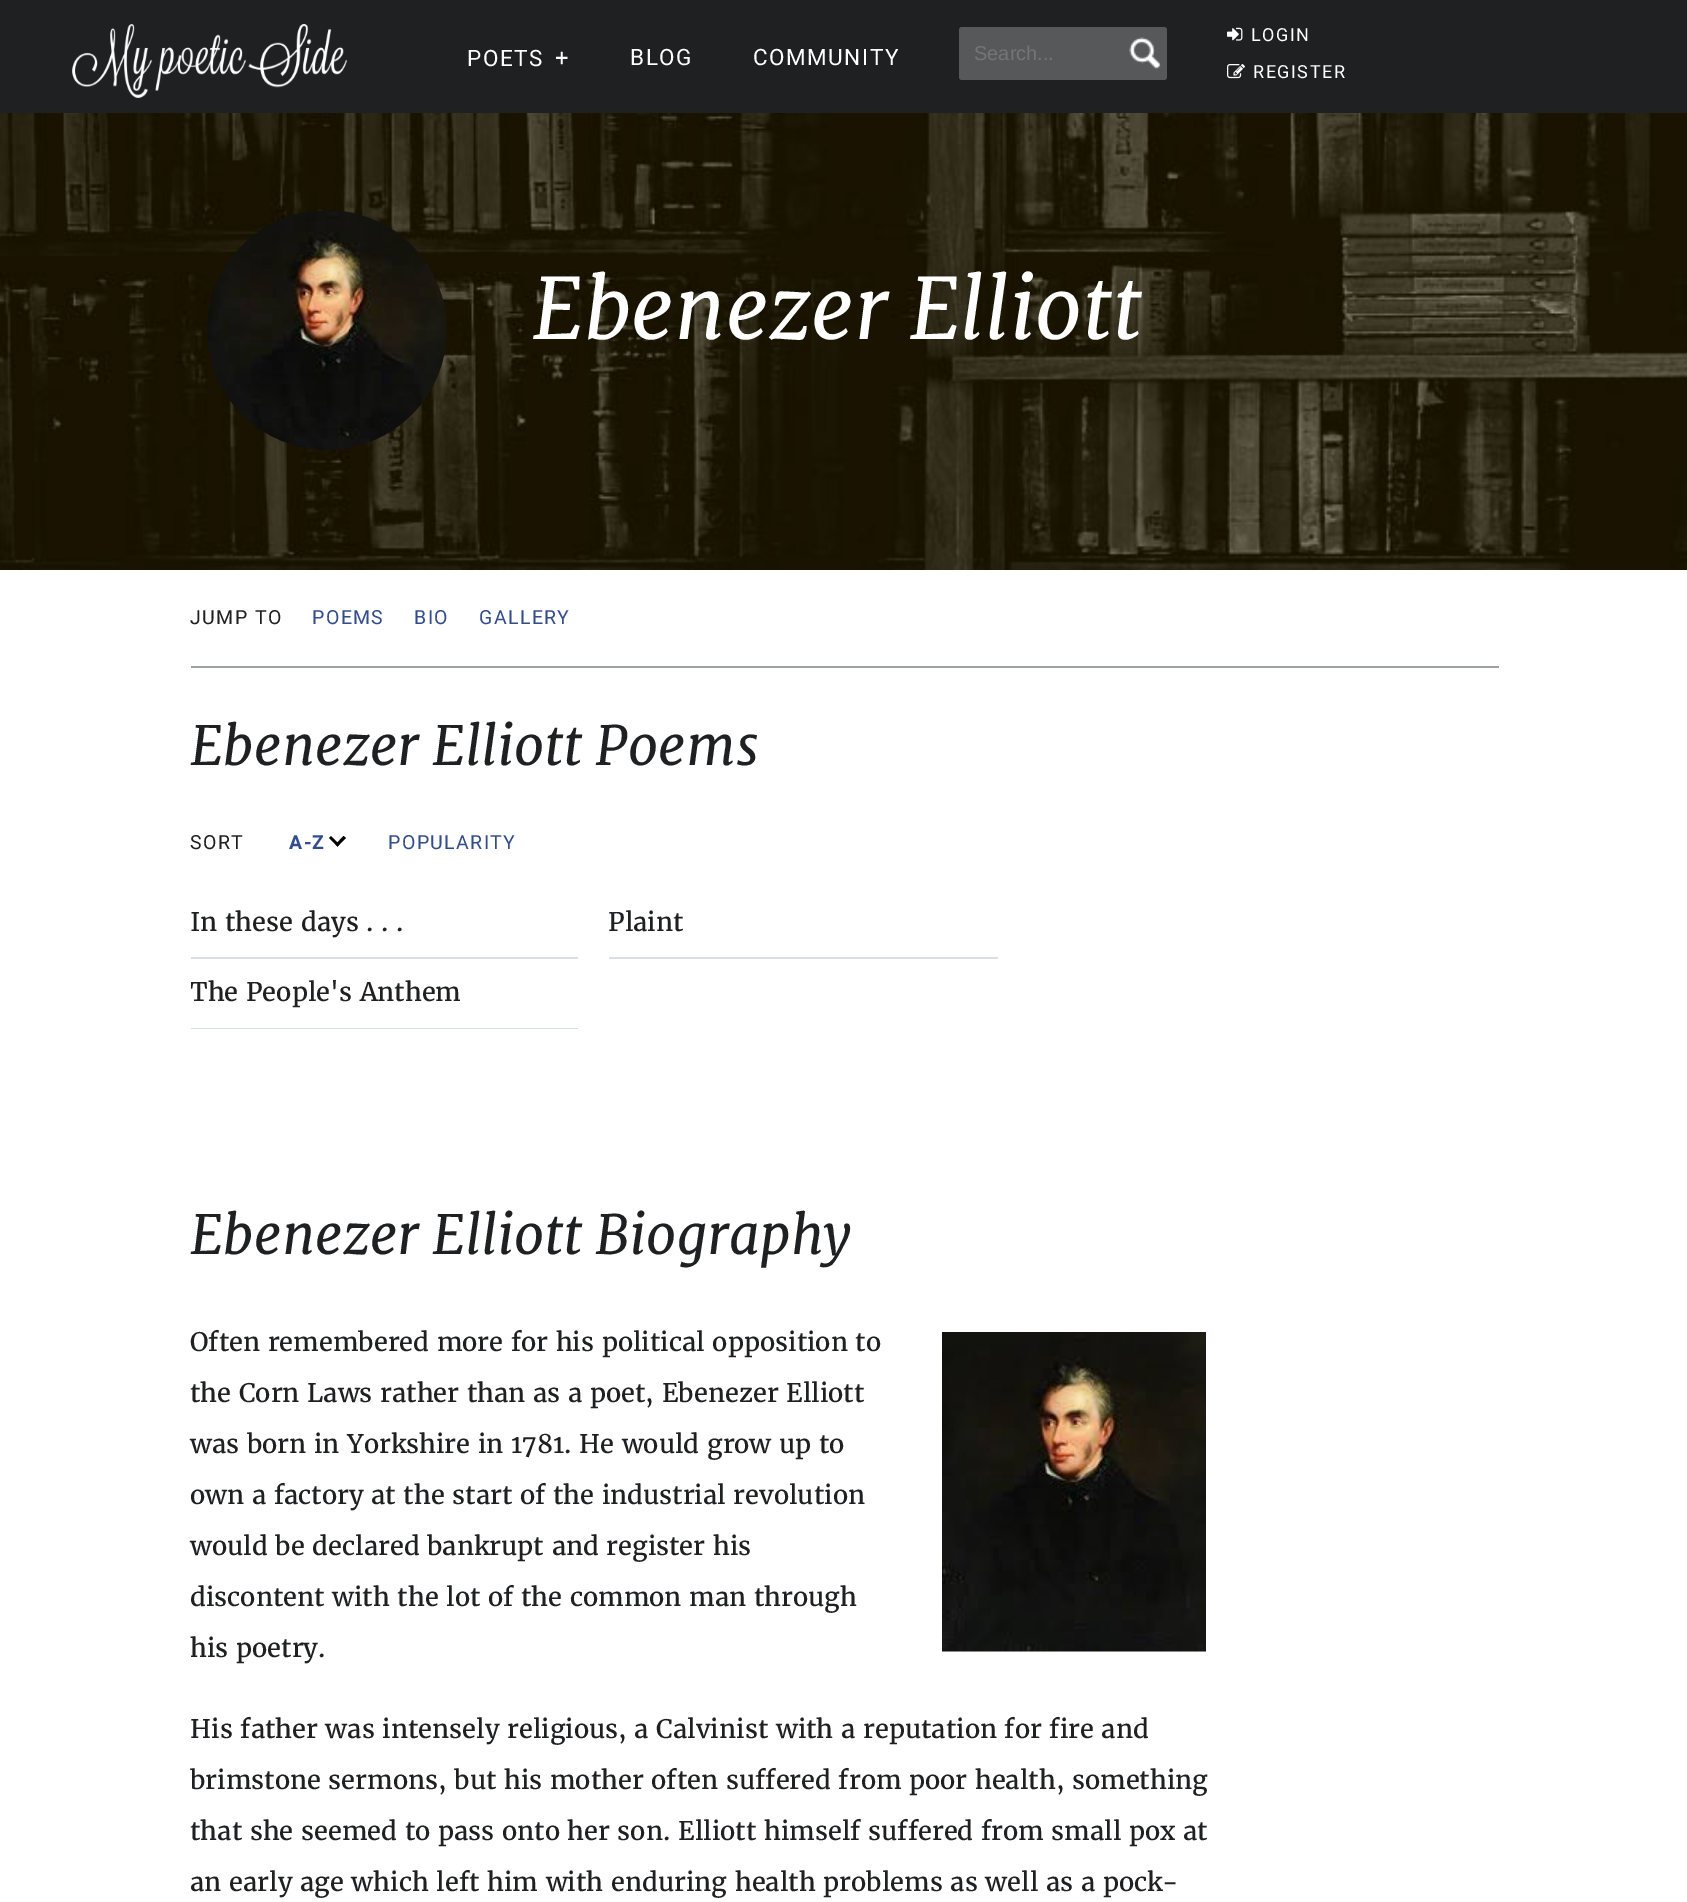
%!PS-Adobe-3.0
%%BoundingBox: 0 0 1687 1902
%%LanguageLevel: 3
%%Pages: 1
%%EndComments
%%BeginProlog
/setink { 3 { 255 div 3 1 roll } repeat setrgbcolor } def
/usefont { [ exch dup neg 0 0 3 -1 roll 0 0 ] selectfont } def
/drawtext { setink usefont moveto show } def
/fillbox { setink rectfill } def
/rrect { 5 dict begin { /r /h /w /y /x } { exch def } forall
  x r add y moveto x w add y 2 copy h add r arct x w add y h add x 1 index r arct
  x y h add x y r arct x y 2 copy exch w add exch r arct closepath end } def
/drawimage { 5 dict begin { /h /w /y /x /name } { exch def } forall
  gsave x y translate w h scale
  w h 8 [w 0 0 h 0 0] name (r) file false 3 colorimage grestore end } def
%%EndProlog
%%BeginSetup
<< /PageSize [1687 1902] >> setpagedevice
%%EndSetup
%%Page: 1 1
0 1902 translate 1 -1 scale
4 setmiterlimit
0 0 1687 1902 255 255 255 fillbox
0 0 1687 113 31 32 33 fillbox
(assets/img1.rgb) 72 24 276 74 drawimage
/Roboto-Regular 22.5 usefont
255 255 255 setink
467 66 moveto 1.5 0 (POETS) ashow
/Roboto-Regular 24 usefont
555 66 moveto 1.5 0 (+) ashow
/Roboto-Regular 22.5 usefont
630 65 moveto 1.5 0 (BLOG) ashow
753 65 moveto 1.5 0 (COMMUNITY) ashow
87 88 89 setink
959 27 208 53 3 rrect fill
(assets/img2.rgb) 1129 37 32 32 drawimage
(Search...) 974 60 /LiberationSans-Regular 20 117 117 117 drawtext
(assets/img3.rgb) 1227 27 16 14 drawimage
/Roboto-Regular 18 usefont
255 255 255 setink
1251 41 moveto 1.5 0 (LOGIN) ashow
(assets/img4.rgb) 1227 64 18 15 drawimage
1253 78 moveto 1.5 0 (REGISTER) ashow
(assets/img5.rgb) 0 113 1687 457 drawimage
(assets/img6.rgb) 207 210 240 240 drawimage
(Ebenezer Elliott) 532 339 /Merriweather-Italic 84 255 255 255 drawtext
191 666 1308 2 156 161 166 fillbox
/Roboto-Regular 19.5 usefont
31 32 33 setink
190 624 moveto 1.4 0 (JUMP TO) ashow
50 76 140 setink
312 624 moveto 1.4 0 (POEMS) ashow
414 624 moveto 1.4 0 (BIO) ashow
479 624 moveto 1.4 0 (GALLERY) ashow
(Ebenezer Elliott Poems) 190 765 /Merriweather-Italic 54 31 32 33 drawtext
/Roboto-Regular 19.5 usefont
190 849 moveto 1.4 0 (SORT) ashow
/Roboto-Bold 19.5 usefont
50 76 140 setink
289 849 moveto 1.4 0 (A-Z) ashow
0 0 0 setink
343.5 836 moveto 346 838 lineto 337.5 846.5 lineto 335.5 844.5 lineto closepath fill
331 836 moveto 339.5 844.5 lineto 337.5 846.5 lineto 329 838 lineto closepath fill
/Roboto-Regular 19.5 usefont
50 76 140 setink
388 849 moveto 1.4 0 (POPULARITY) ashow
191 957 387 2 216 223 230 fillbox
(In these days . . .) 190 931 /Merriweather-Regular 25.5 31 32 33 drawtext
609 957 389 2 216 223 230 fillbox
(Plaint) 608 931 /Merriweather-Regular 25.5 31 32 33 drawtext
191 1028 387 1 216 223 230 fillbox
gsave
191 959 387 69 rectclip
(The People's Anthem) 190 1001 /Merriweather-Regular 25.5 31 32 33 drawtext
grestore
(Ebenezer Elliott Biography) 190 1254 /Merriweather-Italic 54 31 32 33 drawtext
(Often remembered more for his political opposition to) 190 1351 /Merriweather-Regular 25.5 31 32 33 drawtext
(assets/img7.rgb) 942 1332 264 320 drawimage
(the Corn Laws rather than as a poet, Ebenezer Elliott) 190 1402 /Merriweather-Regular 25.5 31 32 33 drawtext
(was born in Yorkshire in 1781. He would grow up to) 190 1453 /Merriweather-Regular 25.5 31 32 33 drawtext
(own a factory at the start of the industrial revolution) 190 1504 /Merriweather-Regular 25.5 31 32 33 drawtext
(would be declared bankrupt and register his) 190 1555 /Merriweather-Regular 25.5 31 32 33 drawtext
(discontent with the lot of the common man through) 190 1606 /Merriweather-Regular 25.5 31 32 33 drawtext
(his poetry.) 190 1657 /Merriweather-Regular 25.5 31 32 33 drawtext
(His father was intensely religious, a Calvinist with a reputation for fire and) 190 1738 /Merriweather-Regular 25.5 31 32 33 drawtext
(brimstone sermons, but his mother often suffered from poor health, something) 190 1789 /Merriweather-Regular 25.5 31 32 33 drawtext
(that she seemed to pass onto her son. Elliott himself suffered from small pox at) 190 1840 /Merriweather-Regular 25.5 31 32 33 drawtext
(an early age which left him with enduring health problems as well as a pock-) 190 1891 /Merriweather-Regular 25.5 31 32 33 drawtext
showpage
%%EOF
